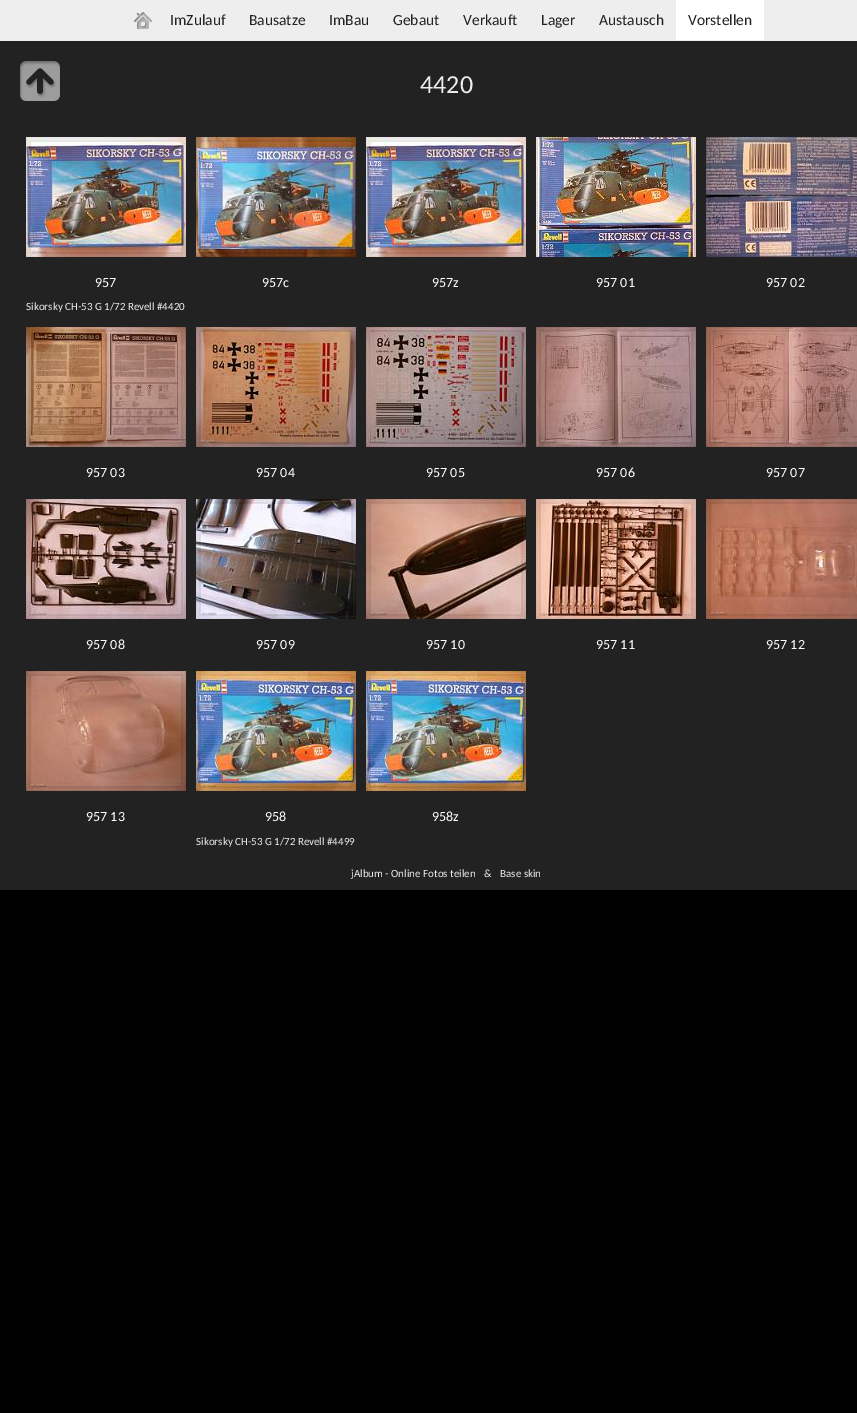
%!PS-Adobe-3.0
%%BoundingBox: 0 0 857 1413
%%LanguageLevel: 3
%%Pages: 1
%%EndComments
%%BeginProlog
/setink { 3 { 255 div 3 1 roll } repeat setrgbcolor } def
/usefont { [ exch dup neg 0 0 3 -1 roll 0 0 ] selectfont } def
/drawtext { setink usefont moveto show } def
/fillbox { setink rectfill } def
/drawimage { 5 dict begin { /h /w /y /x /name } { exch def } forall
  gsave x y translate w h scale
  w h 8 [w 0 0 h 0 0] name (r) file false 3 colorimage grestore end } def
%%EndProlog
%%BeginSetup
<< /PageSize [857 1413] >> setpagedevice
%%EndSetup
%%Page: 1 1
0 1413 translate 1 -1 scale
4 setmiterlimit
0 0 857 1413 0 0 0 fillbox
0 41 857 849 34 34 34 fillbox
0 0 857 41 238 238 238 fillbox
(assets/img1.rgb) 134 12 18 17 drawimage
(ImZulauf) 170 25 /Carlito-Regular 15.5 34 34 34 drawtext
(Bausatze) 249 25 /Carlito-Regular 15.5 34 34 34 drawtext
(ImBau) 329 25 /Carlito-Regular 15.5 34 34 34 drawtext
(Gebaut) 393 25 /Carlito-Regular 15.5 34 34 34 drawtext
(Verkauft) 463 25 /Carlito-Regular 15.5 34 34 34 drawtext
(Lager) 541 25 /Carlito-Regular 15.5 34 34 34 drawtext
(Austausch) 599 25 /Carlito-Regular 15.5 34 34 34 drawtext
676 0 88 40 255 255 255 fillbox
(Vorstellen) 688 25 /Carlito-Regular 15.5 34 34 34 drawtext
(assets/img2.rgb) 20 61 40 40 drawimage
(4420) 420 93 /Carlito-Regular 26 238 238 238 drawtext
(assets/img3.rgb) 26 137 160 120 drawimage
(957) 95 287 /Carlito-Regular 14 255 255 255 drawtext
(Sikorsky CH-53 G 1/72 Revell #4420) 26 310 /Carlito-Regular 11 238 238 238 drawtext
(assets/img4.rgb) 196 137 160 120 drawimage
(957c) 262 287 /Carlito-Regular 14 255 255 255 drawtext
(assets/img3.rgb) 366 137 160 120 drawimage
(957z) 432 287 /Carlito-Regular 14 255 255 255 drawtext
(assets/img5.rgb) 536 137 160 120 drawimage
(957 01) 596 287 /Carlito-Regular 14 255 255 255 drawtext
(assets/img6.rgb) 706 137 151 120 drawimage
(957 02) 766 287 /Carlito-Regular 14 255 255 255 drawtext
(assets/img7.rgb) 26 327 160 120 drawimage
(957 03) 86 477 /Carlito-Regular 14 255 255 255 drawtext
(assets/img8.rgb) 196 327 160 120 drawimage
(957 04) 256 477 /Carlito-Regular 14 255 255 255 drawtext
(assets/img9.rgb) 366 327 160 120 drawimage
(957 05) 426 477 /Carlito-Regular 14 255 255 255 drawtext
(assets/img10.rgb) 536 327 160 120 drawimage
(957 06) 596 477 /Carlito-Regular 14 255 255 255 drawtext
(assets/img11.rgb) 706 327 151 120 drawimage
(957 07) 766 477 /Carlito-Regular 14 255 255 255 drawtext
(assets/img12.rgb) 26 499 160 120 drawimage
(957 08) 86 649 /Carlito-Regular 14 255 255 255 drawtext
(assets/img13.rgb) 196 499 160 120 drawimage
(957 09) 256 649 /Carlito-Regular 14 255 255 255 drawtext
(assets/img14.rgb) 366 499 160 120 drawimage
(957 10) 426 649 /Carlito-Regular 14 255 255 255 drawtext
(assets/img15.rgb) 536 499 160 120 drawimage
(957 11) 596 649 /Carlito-Regular 14 255 255 255 drawtext
(assets/img16.rgb) 706 499 151 120 drawimage
(957 12) 766 649 /Carlito-Regular 14 255 255 255 drawtext
(assets/img17.rgb) 26 671 160 120 drawimage
(957 13) 86 821 /Carlito-Regular 14 255 255 255 drawtext
(assets/img18.rgb) 196 671 160 120 drawimage
(958) 265 821 /Carlito-Regular 14 255 255 255 drawtext
(Sikorsky CH-53 G 1/72 Revell #4499) 196 845 /Carlito-Regular 11 238 238 238 drawtext
(assets/img18.rgb) 366 671 160 120 drawimage
(958z) 432 821 /Carlito-Regular 14 255 255 255 drawtext
(jAlbum - Online Fotos teilen) 351 877 /Carlito-Regular 11 238 238 238 drawtext
(&) 484 877 /Carlito-Regular 11 238 238 238 drawtext
(Base skin) 500 877 /Carlito-Regular 11 238 238 238 drawtext
showpage
%%EOF
